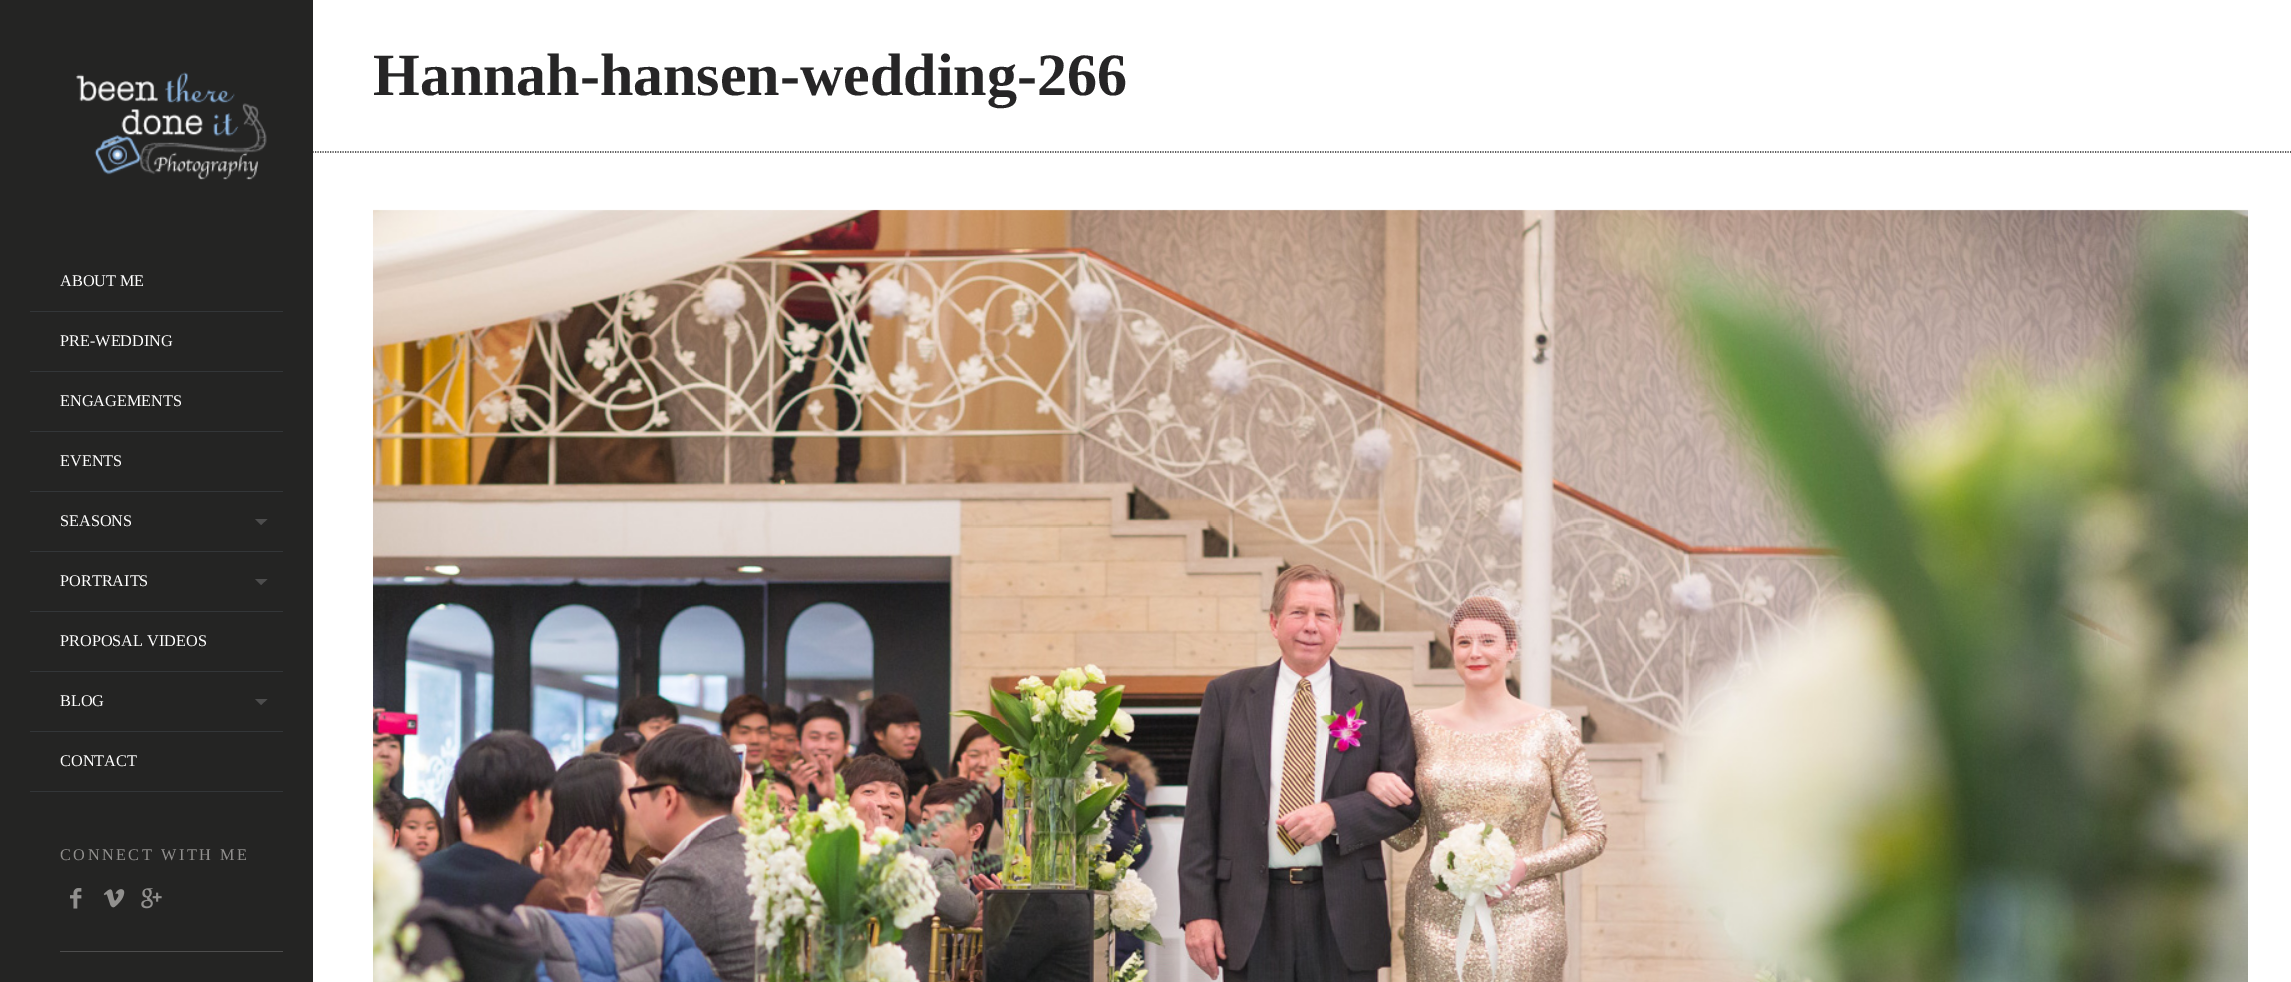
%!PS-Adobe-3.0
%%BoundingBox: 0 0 2291 982
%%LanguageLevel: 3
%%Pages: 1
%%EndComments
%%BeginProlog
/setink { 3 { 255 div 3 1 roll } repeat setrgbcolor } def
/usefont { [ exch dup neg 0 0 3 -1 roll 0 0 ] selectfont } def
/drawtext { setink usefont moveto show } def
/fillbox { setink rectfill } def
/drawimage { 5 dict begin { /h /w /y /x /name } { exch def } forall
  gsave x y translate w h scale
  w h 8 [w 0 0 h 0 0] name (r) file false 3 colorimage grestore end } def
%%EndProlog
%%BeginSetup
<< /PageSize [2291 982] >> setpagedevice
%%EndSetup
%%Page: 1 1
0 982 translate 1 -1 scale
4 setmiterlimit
0 0 2291 982 255 255 255 fillbox
(Hannah-hansen-wedding-266) 373 95 /LiberationSerif-Bold 60 38 37 38 drawtext
36 36 35 setink
1.2 setlinewidth
[1.25 1.25] 0 setdash
312.5 152 moveto 2291 152 lineto stroke
(assets/img1.rgb) 373 209 1875 773 drawimage
0 0 313 982 36 36 35 fillbox
(assets/img2.rgb) 76 72 191 108 drawimage
30 311 253 1 51 54 56 fillbox
(ABOUT ME) 60 286 /LiberationSerif-Regular 16.25 255 255 255 drawtext
30 371 253 1 51 54 56 fillbox
(PRE-WEDDING) 60 346 /LiberationSerif-Regular 16.25 255 255 255 drawtext
30 431 253 1 51 54 56 fillbox
(ENGAGEMENTS) 60 406 /LiberationSerif-Regular 16.25 255 255 255 drawtext
30 491 253 1 51 54 56 fillbox
(EVENTS) 60 466 /LiberationSerif-Regular 16.25 255 255 255 drawtext
30 551 253 1 51 54 56 fillbox
(SEASONS) 60 526 /LiberationSerif-Regular 16.25 255 255 255 drawtext
77 77 77 setink
255 519 moveto 267.5 519 lineto 261 525 lineto closepath fill
30 611 253 1 51 54 56 fillbox
(PORTRAITS) 60 586 /LiberationSerif-Regular 16.25 255 255 255 drawtext
77 77 77 setink
255 579 moveto 267.5 579 lineto 261 585 lineto closepath fill
30 671 253 1 51 54 56 fillbox
(PROPOSAL VIDEOS) 60 646 /LiberationSerif-Regular 16.25 255 255 255 drawtext
30 731 253 1 51 54 56 fillbox
(BLOG) 60 706 /LiberationSerif-Regular 16.25 255 255 255 drawtext
77 77 77 setink
255 699 moveto 267.5 699 lineto 261 705 lineto closepath fill
30 791 253 1 51 54 56 fillbox
(CONTACT) 60 766 /LiberationSerif-Regular 16.25 255 255 255 drawtext
60 951 223 1 77 77 77 fillbox
145 144 142 setink
60 860 moveto 2.5 0 (CONNECT WITH ME) ashow
(assets/img3.rgb) 70 888 12 21 drawimage
(assets/img4.rgb) 103 889 22 19 drawimage
(assets/img5.rgb) 141 888 21 21 drawimage
showpage
%%EOF
